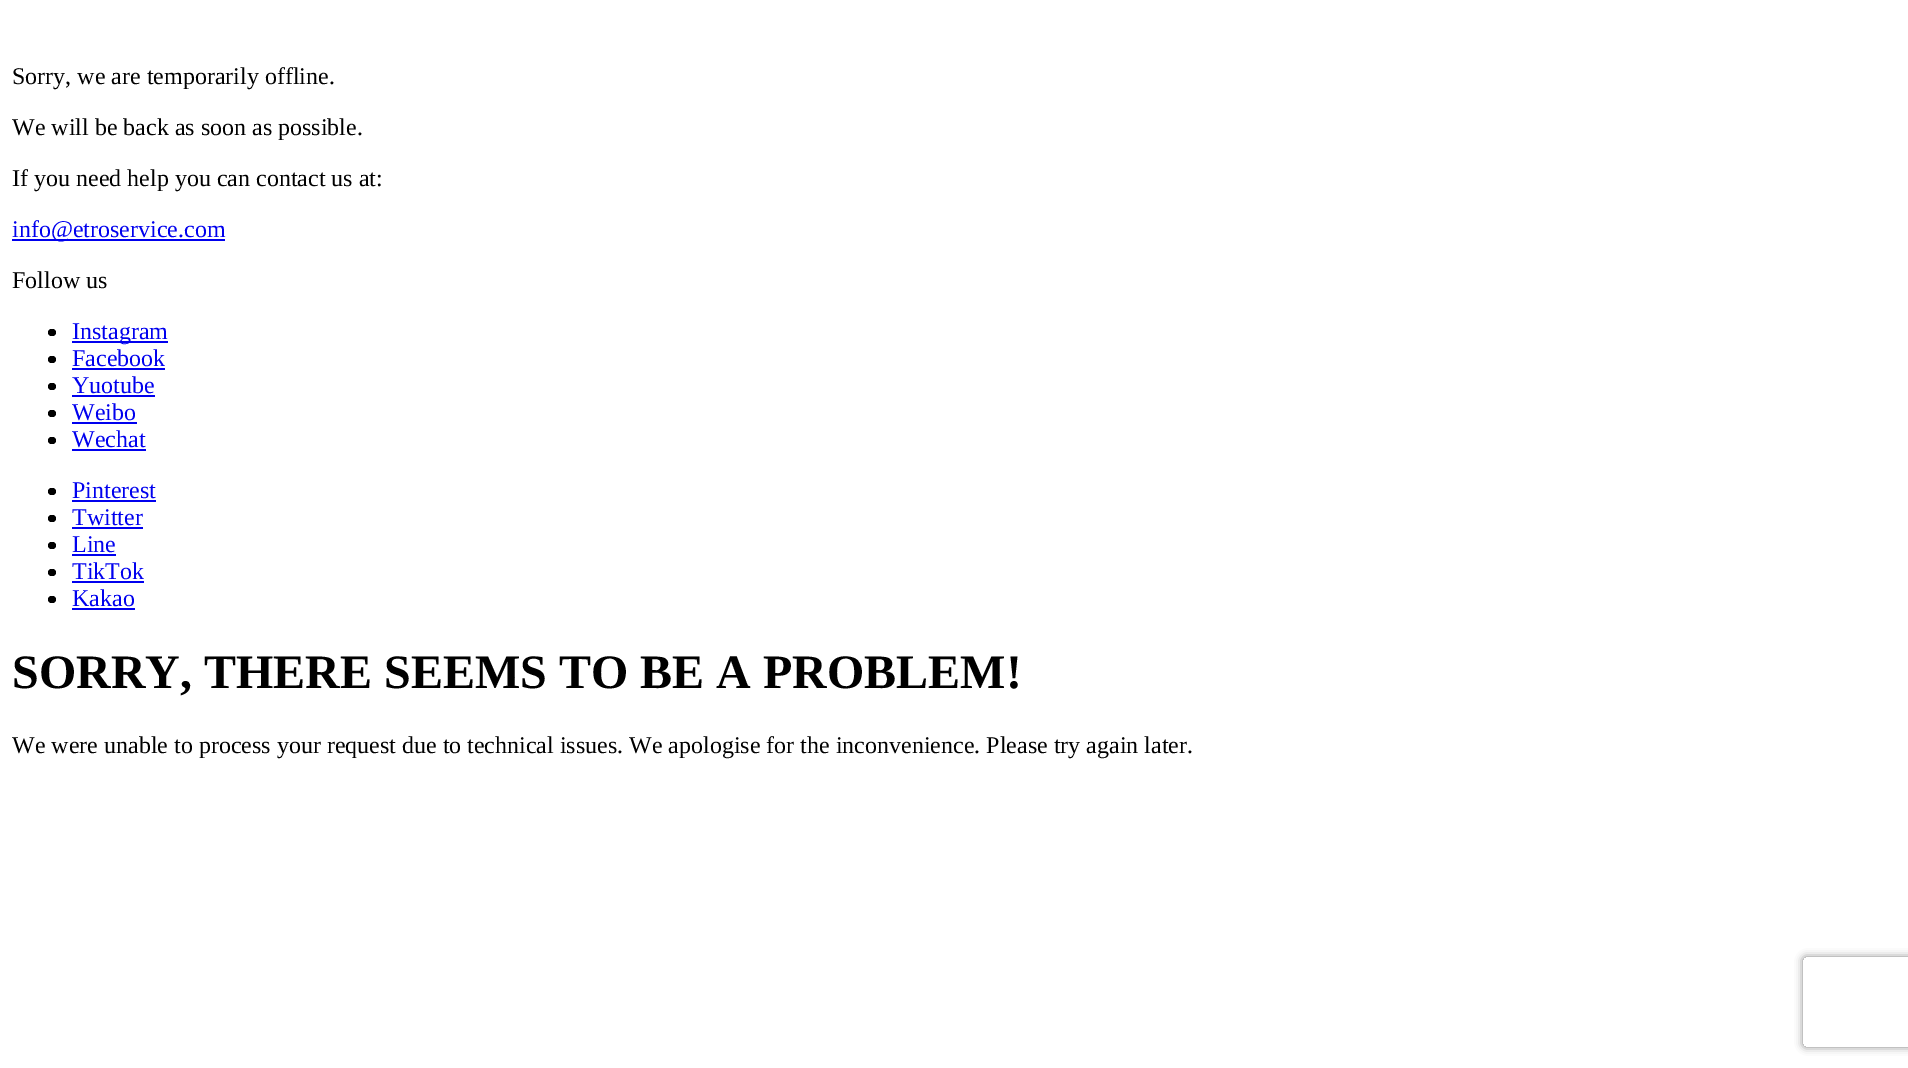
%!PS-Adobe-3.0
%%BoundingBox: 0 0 1908 1068
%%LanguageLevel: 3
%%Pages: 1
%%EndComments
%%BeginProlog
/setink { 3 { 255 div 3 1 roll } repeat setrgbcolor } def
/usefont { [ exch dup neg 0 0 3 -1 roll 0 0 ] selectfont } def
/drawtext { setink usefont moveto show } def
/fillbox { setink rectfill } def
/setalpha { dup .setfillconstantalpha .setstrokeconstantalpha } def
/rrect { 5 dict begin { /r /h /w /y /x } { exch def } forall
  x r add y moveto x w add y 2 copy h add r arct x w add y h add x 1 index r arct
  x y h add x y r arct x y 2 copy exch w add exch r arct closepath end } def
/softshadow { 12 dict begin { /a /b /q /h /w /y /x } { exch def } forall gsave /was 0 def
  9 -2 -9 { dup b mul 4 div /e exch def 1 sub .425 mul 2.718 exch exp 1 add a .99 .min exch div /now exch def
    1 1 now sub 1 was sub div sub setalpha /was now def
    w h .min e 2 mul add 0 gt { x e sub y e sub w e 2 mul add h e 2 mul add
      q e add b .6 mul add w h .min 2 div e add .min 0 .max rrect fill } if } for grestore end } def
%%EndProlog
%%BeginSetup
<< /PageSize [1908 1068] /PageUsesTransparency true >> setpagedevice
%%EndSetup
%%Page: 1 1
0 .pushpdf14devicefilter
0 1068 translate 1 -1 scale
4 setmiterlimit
0 0 1908 1068 255 255 255 fillbox
(Sorry, we are temporarily offline.) 12 84 /LiberationSerif-Regular 24 0 0 0 drawtext
(We will be back as soon as possible.) 12 135 /LiberationSerif-Regular 24 0 0 0 drawtext
(If you need help you can contact us at:) 12 186 /LiberationSerif-Regular 24 0 0 0 drawtext
12 239 213 2 0 0 238 fillbox
(info@etroservice.com) 12 237 /LiberationSerif-Regular 24 0 0 238 drawtext
(Follow us) 12 288 /LiberationSerif-Regular 24 0 0 0 drawtext
48 329 8 7 3.5 rrect fill
72 341 96 2 0 0 238 fillbox
(Instagram) 72 339 /LiberationSerif-Regular 24 0 0 238 drawtext
0 0 0 setink
48 356 8 7 3.5 rrect fill
(Facebook) 72 366 /LiberationSerif-Regular 24 0 0 238 drawtext
72 368 93 2 0 0 238 fillbox
0 0 0 setink
48 383 8 7 3.5 rrect fill
(Yuotube) 72 393 /LiberationSerif-Regular 24 0 0 238 drawtext
72 395 83 2 0 0 238 fillbox
0 0 0 setink
48 410 8 7 3.5 rrect fill
(Weibo) 72 420 /LiberationSerif-Regular 24 0 0 238 drawtext
72 422 65 2 0 0 238 fillbox
0 0 0 setink
48 437 8 7 3.5 rrect fill
(Wechat) 72 447 /LiberationSerif-Regular 24 0 0 238 drawtext
72 449 74 2 0 0 238 fillbox
0 0 0 setink
48 488 8 7 3.5 rrect fill
(Pinterest) 72 498 /LiberationSerif-Regular 24 0 0 238 drawtext
72 500 84 2 0 0 238 fillbox
0 0 0 setink
48 515 8 7 3.5 rrect fill
(Twitter) 72 525 /LiberationSerif-Regular 24 0 0 238 drawtext
72 527 71 2 0 0 238 fillbox
0 0 0 setink
48 542 8 7 3.5 rrect fill
(Line) 72 552 /LiberationSerif-Regular 24 0 0 238 drawtext
72 554 44 2 0 0 238 fillbox
0 0 0 setink
48 569 8 7 3.5 rrect fill
(TikTok) 72 579 /LiberationSerif-Regular 24 0 0 238 drawtext
72 581 72 2 0 0 238 fillbox
0 0 0 setink
48 596 8 7 3.5 rrect fill
(Kakao) 72 606 /LiberationSerif-Regular 24 0 0 238 drawtext
72 608 63 2 0 0 238 fillbox
(SORRY, THERE SEEMS TO BE A PROBLEM!) 12 688 /LiberationSerif-Bold 48 0 0 0 drawtext
(We were unable to process your request due to technical issues. We apologise for the inconvenience. Please try again later.) 12 753 /LiberationSerif-Regular 24 0 0 0 drawtext
gsave
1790 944 moveto 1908 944 lineto 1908 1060 lineto 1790 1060 lineto closepath 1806 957 moveto 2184 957 lineto 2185.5 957 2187 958.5 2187 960 curveto 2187 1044 lineto 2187 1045.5 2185.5 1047 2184 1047 curveto 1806 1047 lineto 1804.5 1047 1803 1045.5 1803 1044 curveto 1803 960 lineto 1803 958.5 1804.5 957 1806 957 curveto closepath eoclip newpath
128 128 128 setink
1803 957 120 90 3 4 1 softshadow
grestore
.poppdf14devicefilter showpage
%%EOF
